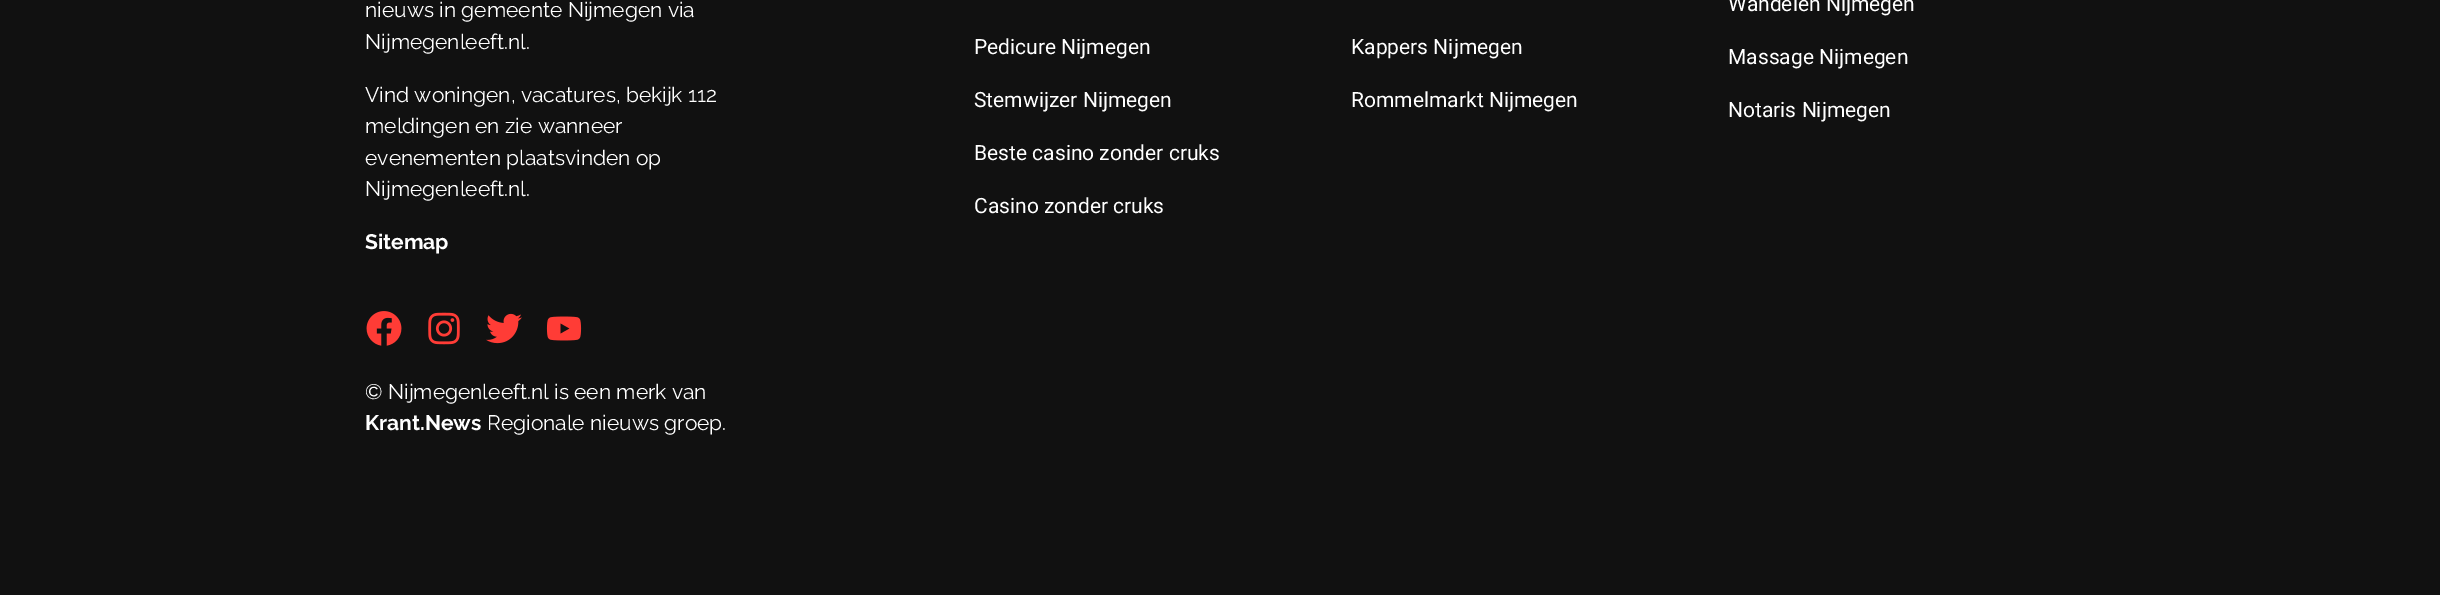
%!PS-Adobe-3.0
%%BoundingBox: 0 0 2440 595
%%LanguageLevel: 3
%%Pages: 1
%%EndComments
%%BeginProlog
/setink { 3 { 255 div 3 1 roll } repeat setrgbcolor } def
/usefont { [ exch dup neg 0 0 3 -1 roll 0 0 ] selectfont } def
/drawtext { setink usefont moveto show } def
/fillbox { setink rectfill } def
/drawimage { 5 dict begin { /h /w /y /x /name } { exch def } forall
  gsave x y translate w h scale
  w h 8 [w 0 0 h 0 0] name (r) file false 3 colorimage grestore end } def
%%EndProlog
%%BeginSetup
<< /PageSize [2440 595] >> setpagedevice
%%EndSetup
%%Page: 1 1
0 595 translate 1 -1 scale
4 setmiterlimit
0 0 2440 595 17 17 17 fillbox
(nieuws in gemeente Nijmegen via) 365 17 /Raleway-Regular 21 255 255 255 drawtext
(Nijmegenleeft.nl.) 365 49 /Raleway-Regular 21 255 255 255 drawtext
(Vind woningen, vacatures, bekijk 112) 365 102 /Raleway-Regular 21 255 255 255 drawtext
(meldingen en zie wanneer) 365 133 /Raleway-Regular 21 255 255 255 drawtext
(evenementen plaatsvinden op) 365 165 /Raleway-Regular 21 255 255 255 drawtext
(Nijmegenleeft.nl.) 365 196 /Raleway-Regular 21 255 255 255 drawtext
(Sitemap) 365 249 /Raleway-Bold 21 255 255 255 drawtext
(assets/img1.rgb) 366 311 36 35 drawimage
(assets/img2.rgb) 428 312 32 33 drawimage
(assets/img3.rgb) 486 313 36 31 drawimage
(assets/img4.rgb) 546 316 36 25 drawimage
(© Nijmegenleeft.nl is een merk van) 365 399 /Raleway-Regular 21 255 255 255 drawtext
(Krant.News) 365 430 /Raleway-Bold 21 255 255 255 drawtext
(Regionale nieuws groep.) 487 430 /Raleway-Regular 21 255 255 255 drawtext
(Pedicure Nijmegen) 974 54 /Roboto-Regular 21 255 255 255 drawtext
(Stemwijzer Nijmegen) 974 107 /Roboto-Regular 21 255 255 255 drawtext
(Beste casino zonder cruks) 974 160 /Roboto-Regular 21 255 255 255 drawtext
(Casino zonder cruks) 974 213 /Roboto-Regular 21 255 255 255 drawtext
(Kappers Nijmegen) 1351 54 /Roboto-Regular 21 255 255 255 drawtext
(Rommelmarkt Nijmegen) 1351 107 /Roboto-Regular 21 255 255 255 drawtext
(Wandelen Nijmegen) 1728 11 /Roboto-Regular 21 255 255 255 drawtext
(Massage Nijmegen) 1728 64 /Roboto-Regular 21 255 255 255 drawtext
(Notaris Nijmegen) 1728 117 /Roboto-Regular 21 255 255 255 drawtext
showpage
%%EOF
